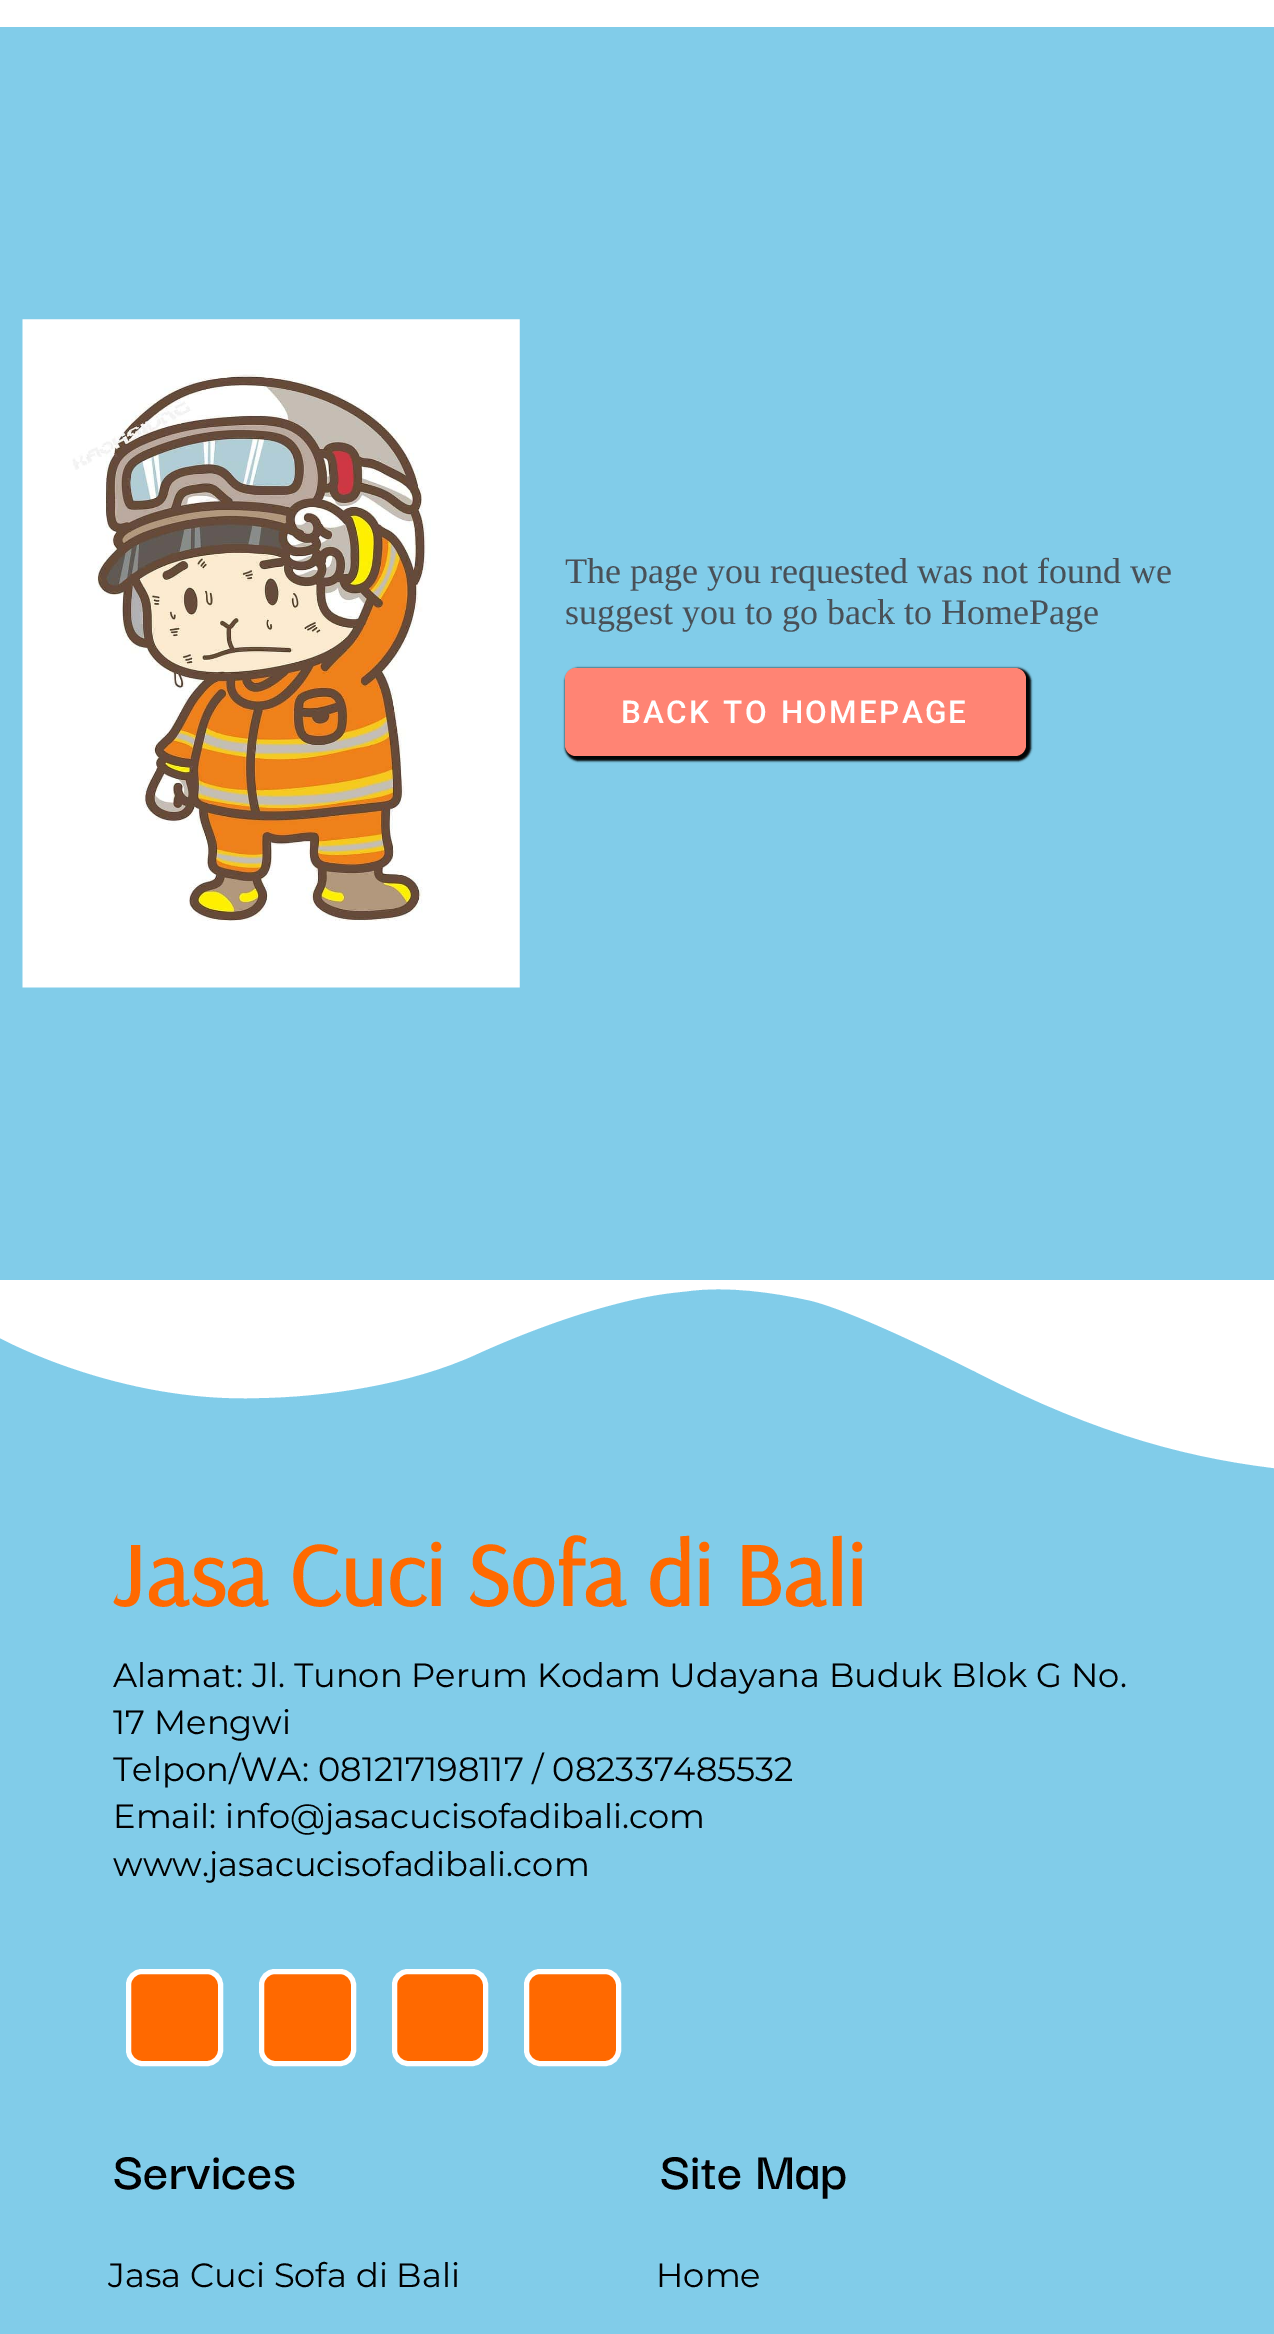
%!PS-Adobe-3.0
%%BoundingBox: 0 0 1274 2334
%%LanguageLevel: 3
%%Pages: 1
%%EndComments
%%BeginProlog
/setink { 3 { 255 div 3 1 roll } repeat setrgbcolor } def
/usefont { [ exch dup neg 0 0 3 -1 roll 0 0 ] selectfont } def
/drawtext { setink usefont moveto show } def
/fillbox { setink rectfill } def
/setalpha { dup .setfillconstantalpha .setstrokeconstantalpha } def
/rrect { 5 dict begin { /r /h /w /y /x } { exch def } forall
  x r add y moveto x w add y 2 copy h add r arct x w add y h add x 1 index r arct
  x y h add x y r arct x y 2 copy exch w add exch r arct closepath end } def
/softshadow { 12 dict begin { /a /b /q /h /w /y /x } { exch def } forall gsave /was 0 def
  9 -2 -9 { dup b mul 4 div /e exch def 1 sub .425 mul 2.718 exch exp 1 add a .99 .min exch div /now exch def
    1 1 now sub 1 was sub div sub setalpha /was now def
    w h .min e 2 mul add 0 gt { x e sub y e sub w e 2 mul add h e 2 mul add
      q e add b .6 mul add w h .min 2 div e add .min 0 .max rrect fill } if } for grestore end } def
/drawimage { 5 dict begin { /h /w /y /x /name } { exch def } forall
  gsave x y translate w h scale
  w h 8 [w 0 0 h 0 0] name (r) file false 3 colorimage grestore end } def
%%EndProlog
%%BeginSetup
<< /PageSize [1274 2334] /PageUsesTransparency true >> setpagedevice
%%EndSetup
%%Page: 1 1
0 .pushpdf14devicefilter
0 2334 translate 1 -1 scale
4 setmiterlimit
0 0 1274 2334 129 204 233 fillbox
0 0 1274 27 255 255 255 fillbox
(assets/img1.rgb) 22 319 498 669 drawimage
(The page you requested was not found we) 565 583 /LiberationSerif-Regular 36 73 80 87 drawtext
(suggest you to go back to HomePage) 565 624 /LiberationSerif-Regular 36 73 80 87 drawtext
0 0 0 setink
565 668 466 93 14 1 1 softshadow
255 132 116 setink
565 668 461 88 11 rrect fill
/Roboto-Medium 31.5 usefont
255 255 255 setink
621 723 moveto 2 0 32 2.25 0 (BACK TO HOMEPAGE) awidthshow
gsave
0 1280 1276 196 rectclip
689 1291 moveto 726 1286 773 1292 812 1301 curveto 851 1311 928 1348 976 1372 curveto 1100 1436 1195 1460 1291 1470 curveto 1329 1475 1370 1477 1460 1466 curveto 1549 1454 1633 1415 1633 1415 curveto 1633 1278 lineto 0 1278 lineto 0 1338 lineto 0 1338 118 1403 259 1398 curveto 323 1397 410 1385 477 1354 curveto 512 1338 563 1318 608 1306 curveto 652 1294 672 1293 689 1291 curveto closepath fill
grestore
(Jasa Cuci Sofa di Bali) 113 1606 /Arsenal-Bold 90 255 105 0 drawtext
(Alamat: Jl. Tunon Perum Kodam Udayana Buduk Blok G No.) 113 1687 /Montserrat-Regular 33.75 0 0 0 drawtext
(17 Mengwi) 113 1734 /Montserrat-Regular 33.75 0 0 0 drawtext
(Telpon/WA: 081217198117 / 082337485532) 113 1781 /Montserrat-Regular 33.75 0 0 0 drawtext
(Email: info@jasacucisofadibali.com) 113 1828 /Montserrat-Regular 33.75 0 0 0 drawtext
(www.jasacucisofadibali.com) 113 1876 /Montserrat-Regular 33.75 0 0 0 drawtext
255 105 0 setink
128.5 1971.5 92 92 13.5 rrect gsave fill grestore
255 255 255 setink
5 setlinewidth
stroke
255 105 0 setink
261.5 1971.5 92 92 13.5 rrect gsave fill grestore
255 255 255 setink
stroke
255 105 0 setink
394.5 1971.5 91 92 13.5 rrect gsave fill grestore
255 255 255 setink
stroke
255 105 0 setink
526.5 1971.5 92 92 13.5 rrect gsave fill grestore
255 255 255 setink
stroke
(Services) 113 2189 /DarkerGrotesque-SemiBold 56 0 0 0 drawtext
(Jasa Cuci Sofa di Bali) 108 2287 /Montserrat-Regular 33.75 0 0 0 drawtext
(Site Map) 660 2189 /DarkerGrotesque-SemiBold 56 0 0 0 drawtext
(Home) 656 2287 /Montserrat-Regular 33.75 0 0 0 drawtext
.poppdf14devicefilter showpage
%%EOF
